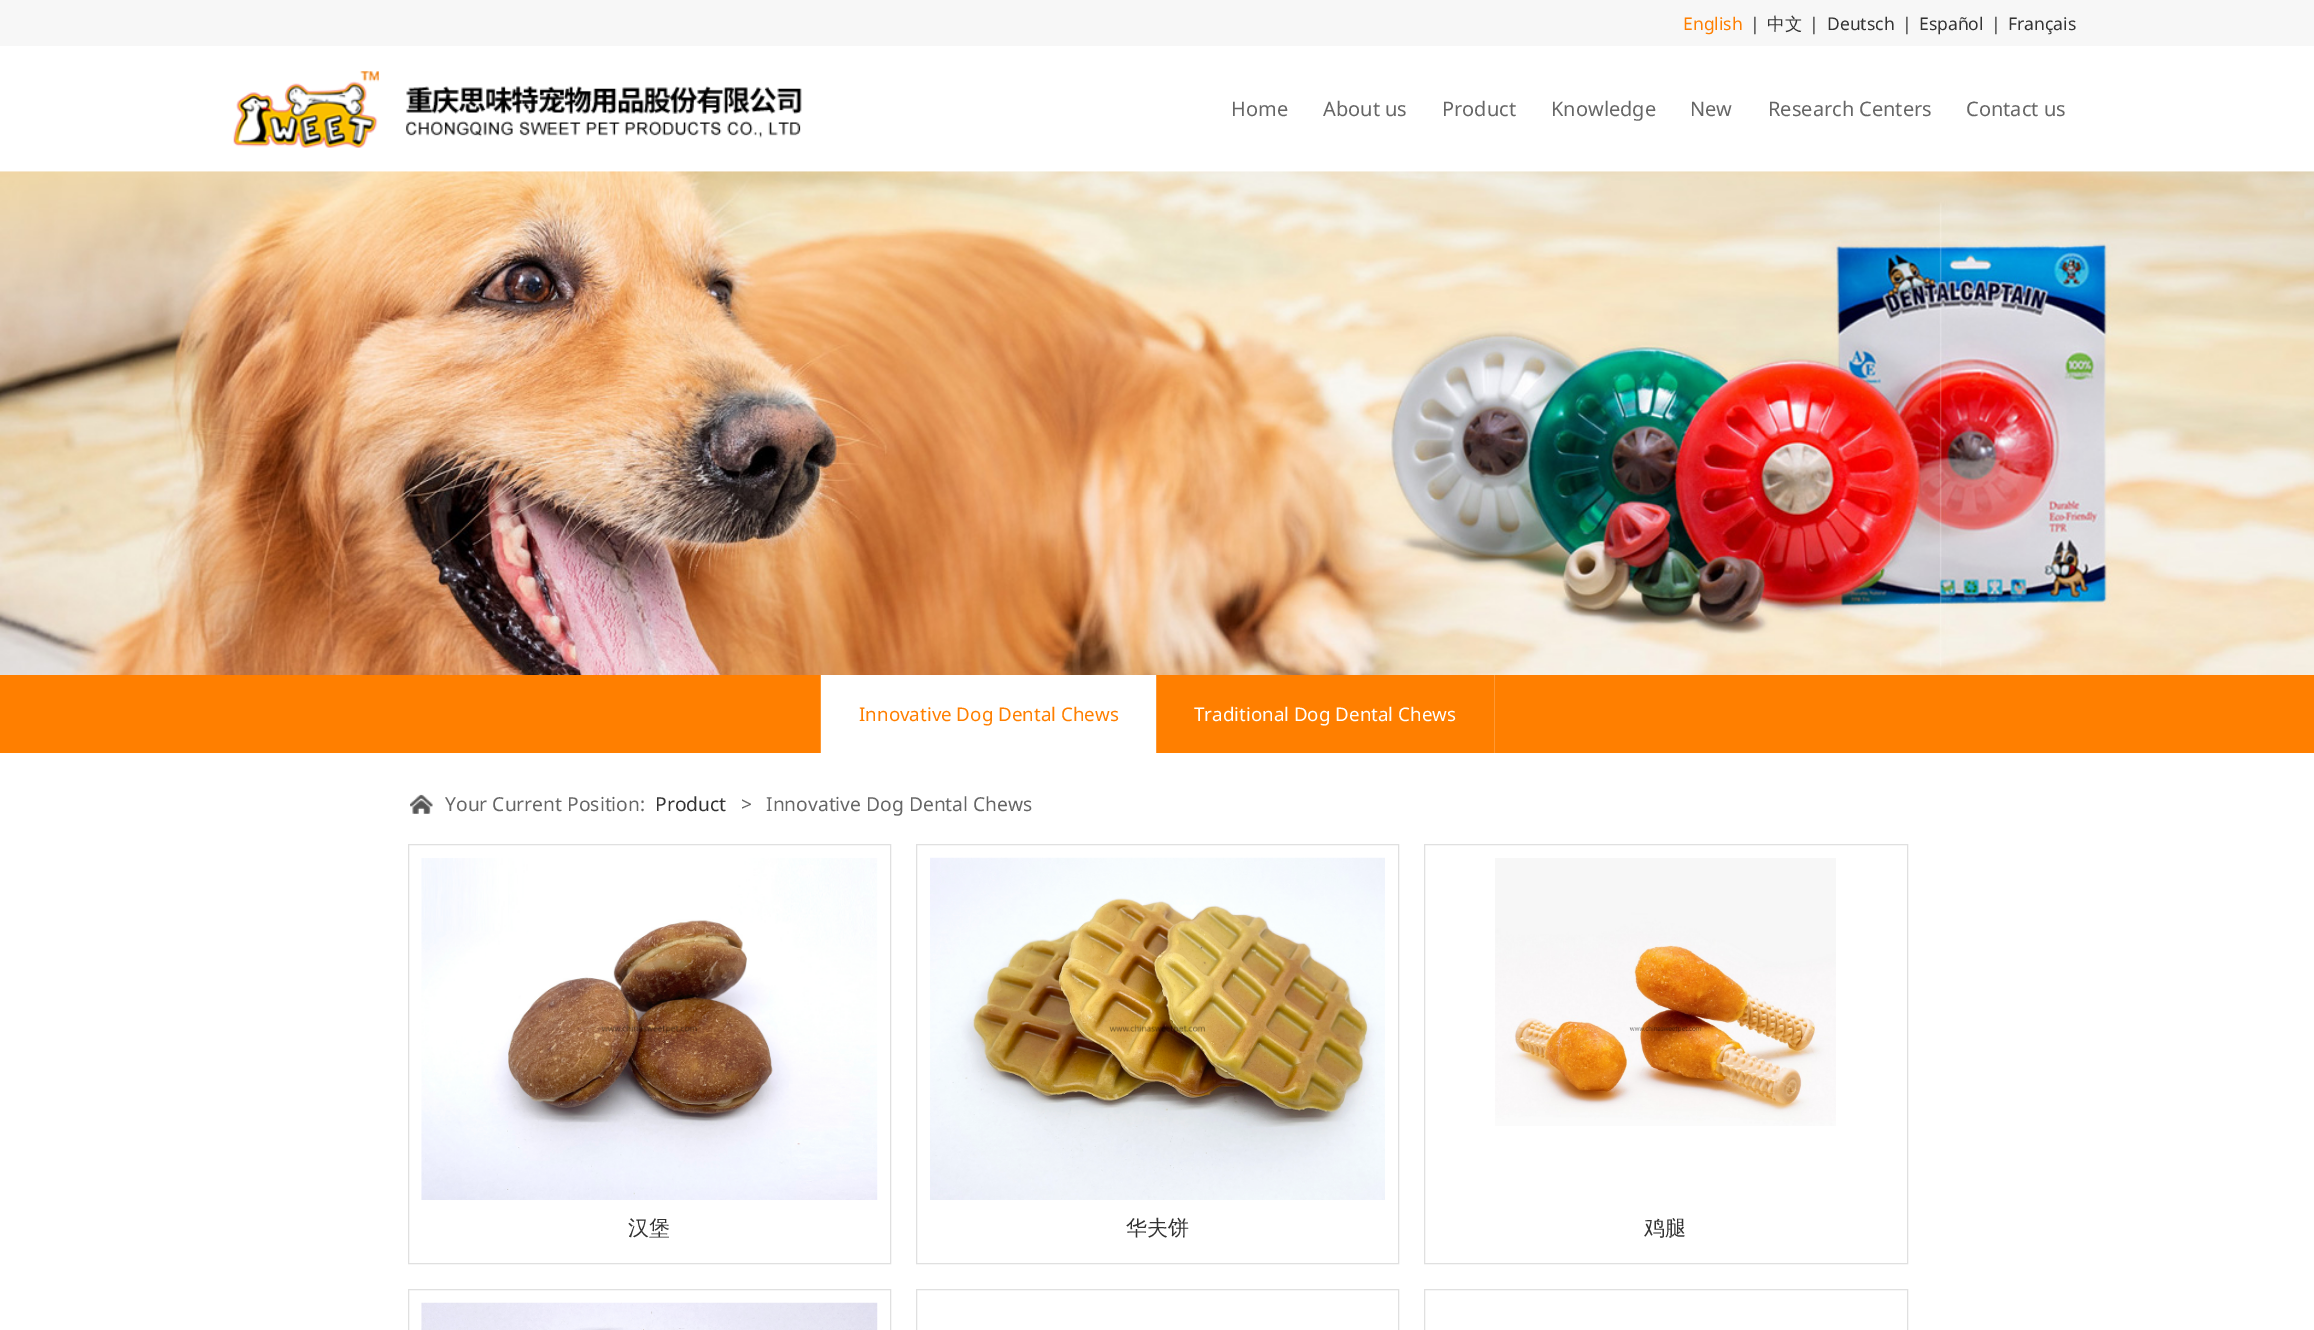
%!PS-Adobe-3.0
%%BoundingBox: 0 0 2314 1330
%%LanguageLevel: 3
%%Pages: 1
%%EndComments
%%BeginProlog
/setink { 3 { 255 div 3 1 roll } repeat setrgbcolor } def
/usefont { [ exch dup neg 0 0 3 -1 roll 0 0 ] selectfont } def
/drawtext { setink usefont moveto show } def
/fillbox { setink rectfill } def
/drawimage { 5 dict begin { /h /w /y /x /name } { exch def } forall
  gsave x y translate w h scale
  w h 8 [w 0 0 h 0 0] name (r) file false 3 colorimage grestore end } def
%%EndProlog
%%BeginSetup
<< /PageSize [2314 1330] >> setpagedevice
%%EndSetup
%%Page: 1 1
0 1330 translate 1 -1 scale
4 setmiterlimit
0 0 2314 1330 255 255 255 fillbox
0 0 2314 46 247 247 247 fillbox
(English) 1683 30 /NotoSans-Regular 17.5 255 127 0 drawtext
(|) 1750 30 /NotoSans-Regular 17.5 51 51 51 drawtext
(中文) 1767 30 /WenQuanYiZenHei-Medium 17.5 51 51 51 drawtext
(|) 1809 30 /NotoSans-Regular 17.5 51 51 51 drawtext
(Deutsch) 1827 30 /NotoSans-Regular 17.5 51 51 51 drawtext
(|) 1902 30 /NotoSans-Regular 17.5 51 51 51 drawtext
(Español) 1919 30 /NotoSans-Regular 17.5 51 51 51 drawtext
(|) 1991 30 /NotoSans-Regular 17.5 51 51 51 drawtext
(Français) 2008 30 /NotoSans-Regular 17.5 51 51 51 drawtext
(assets/img1.rgb) 233 71 569 77 drawimage
(Home) 1231 116 /NotoSans-Regular 20 102 102 102 drawtext
(About us) 1323 116 /NotoSans-Regular 20 102 102 102 drawtext
(Product) 1442 116 /NotoSans-Regular 20 102 102 102 drawtext
(Knowledge) 1551 116 /NotoSans-Regular 20 102 102 102 drawtext
(New) 1690 116 /NotoSans-Regular 20 102 102 102 drawtext
(Research Centers) 1768 116 /NotoSans-Regular 20 102 102 102 drawtext
(Contact us) 1966 116 /NotoSans-Regular 20 102 102 102 drawtext
(assets/img2.rgb) 0 171 2314 504 drawimage
0 675 2314 78 255 127 0 fillbox
1156 675 1 78 255 153 51 fillbox
820 675 1 78 255 153 51 fillbox
821 675 335 78 255 255 255 fillbox
(Innovative Dog Dental Chews) 859 721 /NotoSans-Regular 18.75 255 127 0 drawtext
1494 675 1 78 255 153 51 fillbox
(Traditional Dog Dental Chews) 1194 721 /NotoSans-Regular 18.75 255 255 255 drawtext
(assets/img3.rgb) 410 794 23 20 drawimage
(Your Current Position:) 445 811 /NotoSans-Regular 19.25 102 102 102 drawtext
(Product) 655 811 /NotoSans-Regular 19.25 51 51 51 drawtext
(>) 741 811 /NotoSans-Regular 19.25 102 102 102 drawtext
(Innovative Dog Dental Chews) 766 811 /NotoSans-Regular 19.25 102 102 102 drawtext
224 224 224 setink
408.5 844.5 482 419 rectstroke
(assets/img4.rgb) 421 858 457 342 drawimage
(汉堡) 628 1235 /WenQuanYiZenHei-Medium 21 51 51 51 drawtext
224 224 224 setink
916.5 844.5 482 419 rectstroke
(assets/img5.rgb) 930 857 455 343 drawimage
(华夫饼) 1126 1235 /WenQuanYiZenHei-Medium 21 51 51 51 drawtext
224 224 224 setink
1424.5 844.5 483 419 rectstroke
(assets/img6.rgb) 1495 858 341 268 drawimage
(鸡腿) 1644 1235 /WenQuanYiZenHei-Medium 21 51 51 51 drawtext
224 224 224 setink
408.5 1289.5 482 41 rectstroke
(assets/img7.rgb) 421 1302 457 28 drawimage
916.5 1289.5 482 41 rectstroke
1424.5 1289.5 483 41 rectstroke
showpage
%%EOF
